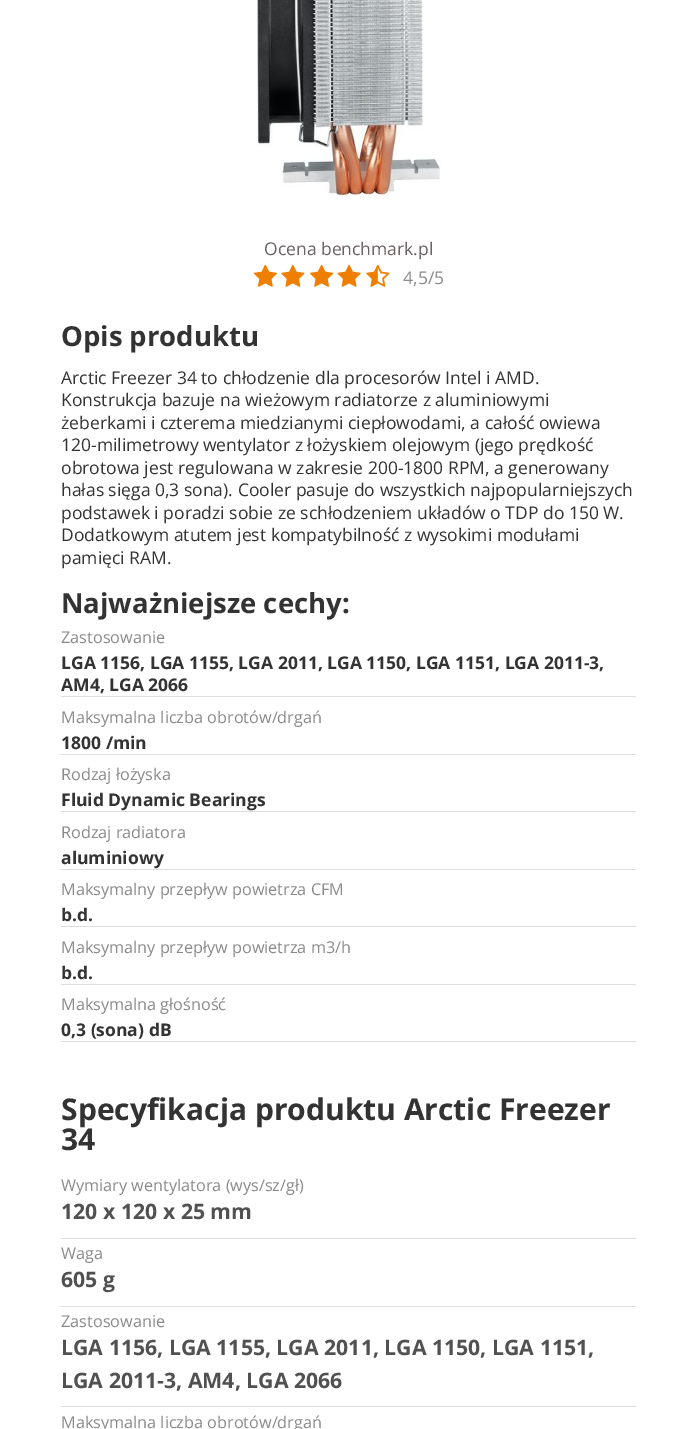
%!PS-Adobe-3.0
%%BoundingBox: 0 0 697 1429
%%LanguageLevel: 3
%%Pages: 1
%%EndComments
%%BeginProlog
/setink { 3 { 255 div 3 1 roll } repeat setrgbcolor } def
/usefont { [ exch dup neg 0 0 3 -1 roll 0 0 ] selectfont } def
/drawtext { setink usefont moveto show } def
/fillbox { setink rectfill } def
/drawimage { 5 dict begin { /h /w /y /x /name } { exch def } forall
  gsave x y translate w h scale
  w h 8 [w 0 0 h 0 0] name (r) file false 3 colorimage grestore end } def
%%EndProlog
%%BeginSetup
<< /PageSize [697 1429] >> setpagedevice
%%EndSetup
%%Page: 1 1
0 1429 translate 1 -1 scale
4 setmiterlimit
0 0 697 1429 255 255 255 fillbox
(assets/img1.rgb) 257 0 184 200 drawimage
(Ocena benchmark.pl) 264 255 /OpenSans-Regular 17.5 104 98 98 drawtext
(assets/img2.rgb) 253 264 24 23 drawimage
(assets/img3.rgb) 281 264 24 23 drawimage
(assets/img4.rgb) 310 264 24 23 drawimage
(assets/img5.rgb) 337 264 24 23 drawimage
(assets/img6.rgb) 366 264 24 23 drawimage
(4,5/5) 403 284 /OpenSans-Regular 17.5 138 138 138 drawtext
(Opis produktu) 61 346 /OpenSans-Bold 27.5 51 51 51 drawtext
(Arctic Freezer 34 to chłodzenie dla procesorów Intel i AMD.) 61 384 /OpenSans-Regular 17.5 51 51 51 drawtext
(Konstrukcja bazuje na wieżowym radiatorze z aluminiowymi) 61 406 /OpenSans-Regular 17.5 51 51 51 drawtext
(żeberkami i czterema miedzianymi ciepłowodami, a całość owiewa) 61 429 /OpenSans-Regular 17.5 51 51 51 drawtext
(120-milimetrowy wentylator z łożyskiem olejowym \(jego prędkość) 61 451 /OpenSans-Regular 17.5 51 51 51 drawtext
(obrotowa jest regulowana w zakresie 200-1800 RPM, a generowany) 61 474 /OpenSans-Regular 17.5 51 51 51 drawtext
(hałas sięga 0,3 sona\). Cooler pasuje do wszystkich najpopularniejszych) 61 496 /OpenSans-Regular 17.5 51 51 51 drawtext
(podstawek i poradzi sobie ze schłodzeniem układów o TDP do 150 W.) 61 519 /OpenSans-Regular 17.5 51 51 51 drawtext
(Dodatkowym atutem jest kompatybilność z wysokimi modułami) 61 541 /OpenSans-Regular 17.5 51 51 51 drawtext
(pamięci RAM.) 61 564 /OpenSans-Regular 17.5 51 51 51 drawtext
(Najważniejsze cechy:) 61 613 /OpenSans-Bold 27.5 51 51 51 drawtext
61 696 575 1 221 221 221 fillbox
(Zastosowanie) 61 643 /OpenSans-Regular 16.25 138 138 138 drawtext
(LGA 1156, LGA 1155, LGA 2011, LGA 1150, LGA 1151, LGA 2011-3,) 61 669 /OpenSans-Bold 17.5 51 51 51 drawtext
(AM4, LGA 2066) 61 691 /OpenSans-Bold 17.5 51 51 51 drawtext
61 754 575 1 221 221 221 fillbox
(Maksymalna liczba obrotów/drgań) 61 723 /OpenSans-Regular 16.25 138 138 138 drawtext
(1800 /min) 61 749 /OpenSans-Bold 17.5 51 51 51 drawtext
61 811 575 1 221 221 221 fillbox
(Rodzaj łożyska) 61 780 /OpenSans-Regular 16.25 138 138 138 drawtext
(Fluid Dynamic Bearings) 61 806 /OpenSans-Bold 17.5 51 51 51 drawtext
61 869 575 1 221 221 221 fillbox
(Rodzaj radiatora) 61 838 /OpenSans-Regular 16.25 138 138 138 drawtext
(aluminiowy) 61 864 /OpenSans-Bold 17.5 51 51 51 drawtext
61 926 575 1 221 221 221 fillbox
(Maksymalny przepływ powietrza CFM) 61 895 /OpenSans-Regular 16.25 138 138 138 drawtext
(b.d.) 61 921 /OpenSans-Bold 17.5 51 51 51 drawtext
61 984 575 1 221 221 221 fillbox
(Maksymalny przepływ powietrza m3/h) 61 953 /OpenSans-Regular 16.25 138 138 138 drawtext
(b.d.) 61 979 /OpenSans-Bold 17.5 51 51 51 drawtext
61 1041 575 1 221 221 221 fillbox
(Maksymalna głośność) 61 1010 /OpenSans-Regular 16.25 138 138 138 drawtext
(0,3 \(sona\) dB) 61 1036 /OpenSans-Bold 17.5 51 51 51 drawtext
(Specyfikacja produktu Arctic Freezer) 61 1120 /OpenSans-Bold 30 51 51 51 drawtext
(34) 61 1150 /OpenSans-Bold 30 51 51 51 drawtext
(Wymiary wentylatora \(wys/sz/gł\)) 61 1191 /OpenSans-Regular 16.25 138 138 138 drawtext
61 1238 575 1 221 221 221 fillbox
(120 x 120 x 25 mm) 61 1219 /OpenSans-Bold 21.25 81 81 81 drawtext
(Waga) 61 1259 /OpenSans-Regular 16.25 138 138 138 drawtext
61 1306 575 1 221 221 221 fillbox
(605 g) 61 1287 /OpenSans-Bold 21.25 81 81 81 drawtext
(Zastosowanie) 61 1327 /OpenSans-Regular 16.25 138 138 138 drawtext
61 1406 575 1 221 221 221 fillbox
(LGA 1156, LGA 1155, LGA 2011, LGA 1150, LGA 1151,) 61 1355 /OpenSans-Bold 21.25 81 81 81 drawtext
(LGA 2011-3, AM4, LGA 2066) 61 1388 /OpenSans-Bold 21.25 81 81 81 drawtext
(Maksymalna liczba obrotów/drgań) 61 1428 /OpenSans-Regular 16.25 138 138 138 drawtext
showpage
%%EOF
